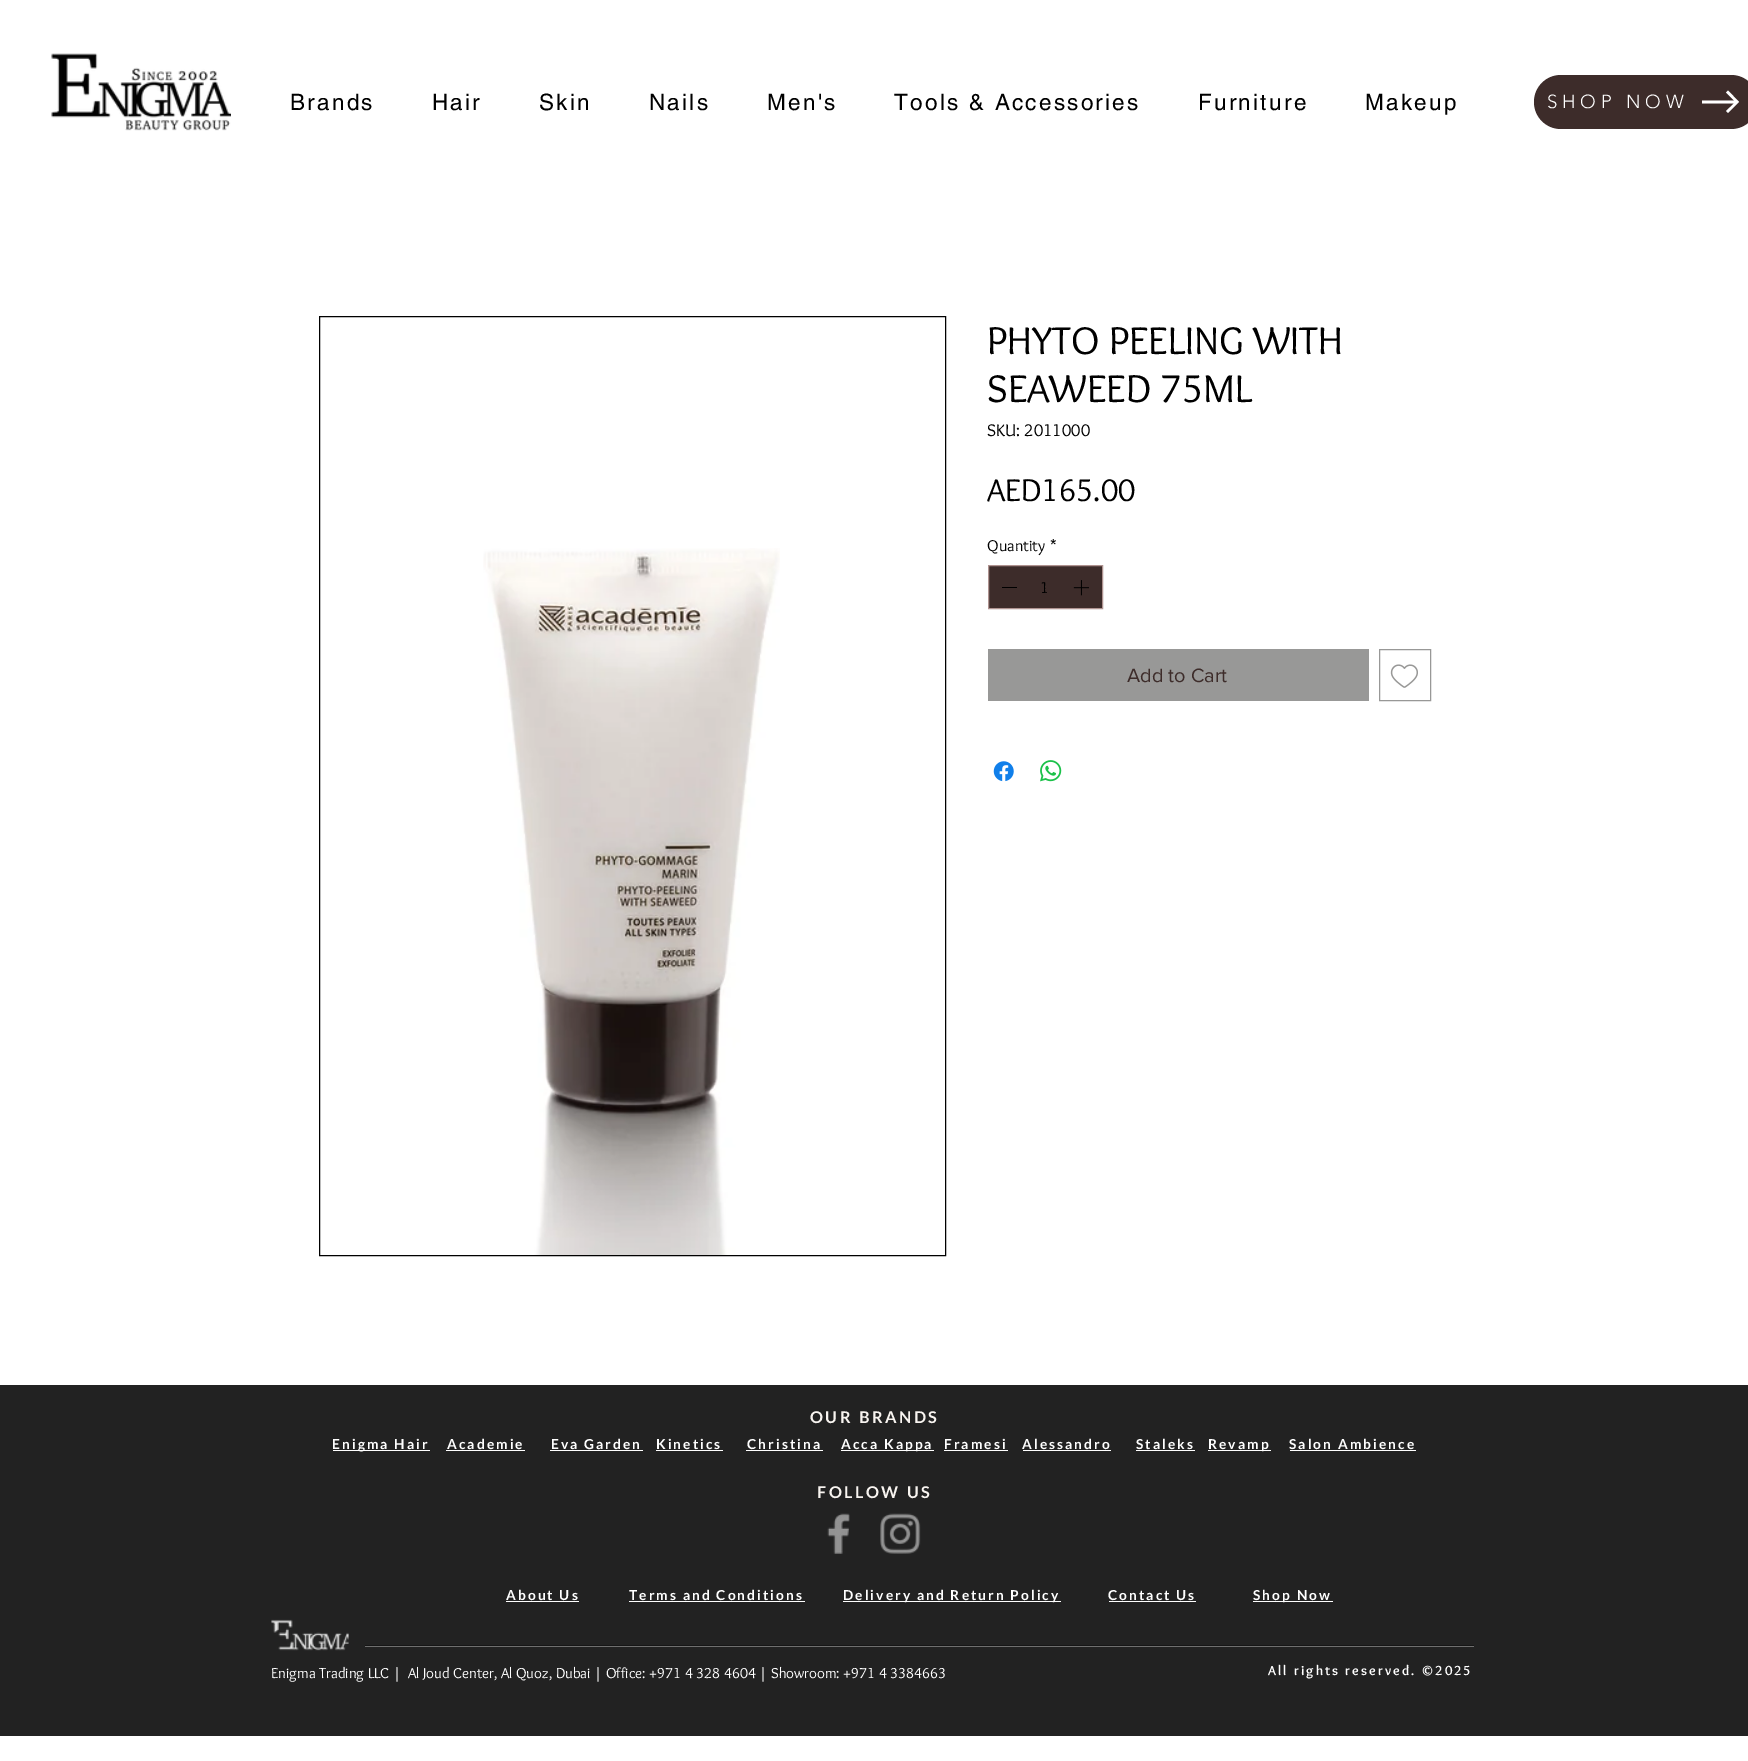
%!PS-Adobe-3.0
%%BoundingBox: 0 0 1748 1761
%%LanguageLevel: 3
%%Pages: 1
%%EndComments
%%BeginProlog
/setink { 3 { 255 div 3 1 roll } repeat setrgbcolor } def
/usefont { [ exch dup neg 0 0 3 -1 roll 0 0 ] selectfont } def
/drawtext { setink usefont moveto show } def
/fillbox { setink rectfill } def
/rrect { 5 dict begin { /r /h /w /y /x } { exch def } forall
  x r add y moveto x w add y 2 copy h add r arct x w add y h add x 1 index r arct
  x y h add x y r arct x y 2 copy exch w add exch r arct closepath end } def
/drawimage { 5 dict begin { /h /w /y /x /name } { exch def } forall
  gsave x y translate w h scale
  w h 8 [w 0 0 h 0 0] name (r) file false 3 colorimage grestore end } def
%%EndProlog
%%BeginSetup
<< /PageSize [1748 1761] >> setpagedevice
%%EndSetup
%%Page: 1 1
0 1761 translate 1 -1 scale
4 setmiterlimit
0 0 1748 1761 255 255 255 fillbox
(assets/img1.rgb) 51 53 180 78 drawimage
/helvetica-Regular 22.5 usefont
0 0 0 setink
290 110 moveto 2.25 0 (Brands) ashow
432 110 moveto 2.25 0 (Hair) ashow
539 110 moveto 2.25 0 (Skin) ashow
649 110 moveto 2.25 0 (Nails) ashow
767 110 moveto 2.25 0 (Men's) ashow
894 110 moveto 2.25 0 (Tools & Accessories) ashow
1198 110 moveto 2.25 0 (Furniture) ashow
1365 110 moveto 2.25 0 (Makeup) ashow
61 44 42 setink
1534 75 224 54 27 rrect fill
/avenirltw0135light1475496-Light 18.75 usefont
255 255 255 setink
1547 108 moveto 4.75 0 (SHOP NOW) ashow
1728 90.5 moveto 1726 92.5 lineto 1734 100.5 lineto 1702 100.5 lineto 1702 103.5 lineto 1734 103.5 lineto 1726 111 lineto 1728 113 lineto 1739 102 lineto closepath eofill
0 0 0 setink
319.5 316.5 626 939 rectstroke
(assets/img2.rgb) 483 548 297 707 drawimage
(PHYTO PEELING WITH) 987 354 /Overlock-Regular 40 0 0 0 drawtext
(SEAWEED 75ML) 987 402 /Overlock-Regular 40 0 0 0 drawtext
(SKU: 2011000) 987 436 /Overlock-Regular 17.5 0 0 0 drawtext
(AED165.00) 987 501 /Overlock-Regular 32.5 0 0 0 drawtext
(Quantity) 987 551 /Overlock-Regular 16.25 0 0 0 drawtext
(*) 1050 551 /Overlock-Regular 16.25 0 0 0 drawtext
61 44 42 setink
988.5 565.5 moveto 1102.5 565.5 lineto 1102.5 608.5 lineto 988.5 608.5 lineto closepath gsave fill grestore
175 147 144 setink
stroke
1002 587 15 1 0 0 0 fillbox
(1) 1040 593 /Overlock-Regular 16.25 0 0 0 drawtext
(assets/img3.rgb) 1073 580 16 16 drawimage
988 649 381 52 152 152 151 fillbox
(Add to Cart) 1127 682 /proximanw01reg-Regular 20 61 44 42 drawtext
152 152 151 setink
1379.5 649.5 51 51 rectstroke
(assets/img4.rgb) 1390 664 28 24 drawimage
(assets/img5.rgb) 993 761 21 21 drawimage
(assets/img6.rgb) 1040 760 22 22 drawimage
0 1385 1748 351 34 34 34 fillbox
/Lato-Bold 16.25 usefont
248 244 240 setink
810 1423 moveto 2.5 0 (OUR BRANDS) ashow
333 1450 97 1 255 255 255 fillbox
/Lato-Bold 13.75 usefont
332 1449 moveto 2.05 0 (Enigma Hair) ashow
447 1449 moveto 2.05 0 (Academie) ashow
446 1450 79 1 255 255 255 fillbox
551 1449 moveto 2.05 0 (Eva Garden) ashow
550 1450 93 1 255 255 255 fillbox
656 1449 moveto 2.05 0 (Kinetics) ashow
656 1450 67 1 255 255 255 fillbox
747 1449 moveto 2.05 0 (Christina) ashow
746 1450 77 1 255 255 255 fillbox
841 1450 93 1 255 255 255 fillbox
841 1449 moveto 2.05 0 (Acca Kappa) ashow
944 1449 moveto 2.05 0 (Framesi) ashow
944 1450 64 1 255 255 255 fillbox
1022 1449 moveto 2.05 0 (Alessandro) ashow
1023 1450 88 1 255 255 255 fillbox
1136 1449 moveto 2.05 0 (Staleks) ashow
1136 1450 59 1 255 255 255 fillbox
1208 1450 63 1 255 255 255 fillbox
1208 1449 moveto 2.05 0 (Revamp) ashow
1289 1449 moveto 2.05 0 (Salon Ambience) ashow
1290 1450 126 1 255 255 255 fillbox
/Lato-Bold 16.25 usefont
248 244 240 setink
817 1498 moveto 2.5 0 (FOLLOW US) ashow
(assets/img7.rgb) 827 1513 23 41 drawimage
(assets/img8.rgb) 880 1513 41 41 drawimage
/Lato-Bold 13.75 usefont
255 255 255 setink
506 1600 moveto 2.05 0 (About Us) ashow
506 1601 73 1 255 255 255 fillbox
629 1600 moveto 2.05 0 (Terms and Conditions) ashow
629 1601 176 1 255 255 255 fillbox
843 1601 218 1 255 255 255 fillbox
843 1600 moveto 2.05 0 (Delivery and Return Policy) ashow
1108 1600 moveto 2.05 0 (Contact Us) ashow
1109 1601 87 1 255 255 255 fillbox
1253 1601 80 1 255 255 255 fillbox
1253 1600 moveto 2.05 0 (Shop Now) ashow
(assets/img9.rgb) 271 1619 78 32 drawimage
365 1645 1109 1 22 22 22 fillbox
365 1646 1109 1 111 111 111 fillbox
(Enigma Trading LLC |  Al Joud Center, Al Quoz, Dubai | Office: +971 4 328 4604 | Showroom: +971 4 3384663) 271 1678 /Overlock-Regular 15 255 255 255 drawtext
/Overlock-Bold 13.75 usefont
1268 1675 moveto 2.05 0 (All rights reserved. ©2025) ashow
showpage
%%EOF
